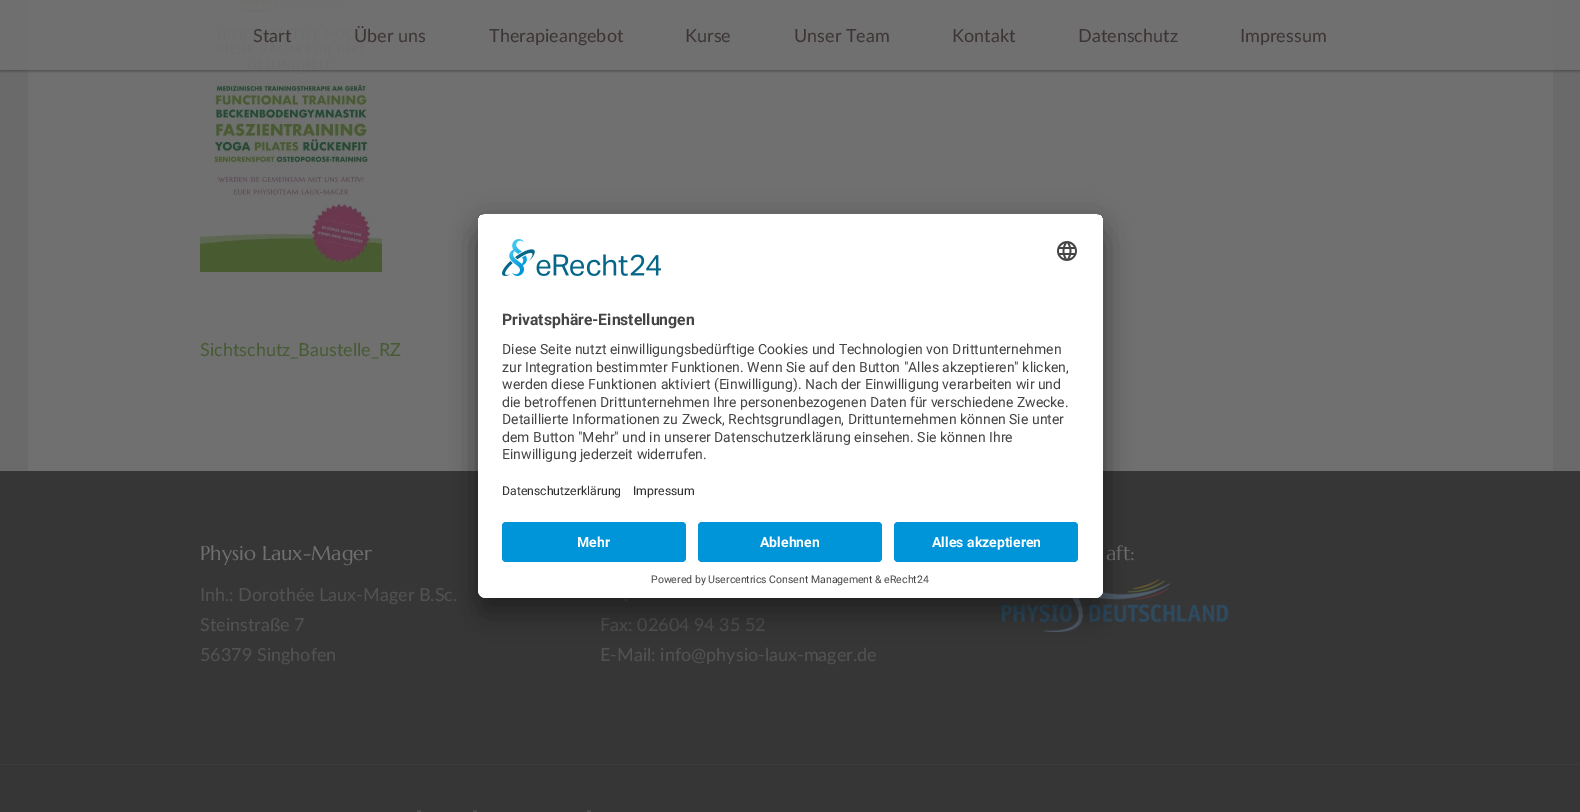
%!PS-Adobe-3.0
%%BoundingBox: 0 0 1580 812
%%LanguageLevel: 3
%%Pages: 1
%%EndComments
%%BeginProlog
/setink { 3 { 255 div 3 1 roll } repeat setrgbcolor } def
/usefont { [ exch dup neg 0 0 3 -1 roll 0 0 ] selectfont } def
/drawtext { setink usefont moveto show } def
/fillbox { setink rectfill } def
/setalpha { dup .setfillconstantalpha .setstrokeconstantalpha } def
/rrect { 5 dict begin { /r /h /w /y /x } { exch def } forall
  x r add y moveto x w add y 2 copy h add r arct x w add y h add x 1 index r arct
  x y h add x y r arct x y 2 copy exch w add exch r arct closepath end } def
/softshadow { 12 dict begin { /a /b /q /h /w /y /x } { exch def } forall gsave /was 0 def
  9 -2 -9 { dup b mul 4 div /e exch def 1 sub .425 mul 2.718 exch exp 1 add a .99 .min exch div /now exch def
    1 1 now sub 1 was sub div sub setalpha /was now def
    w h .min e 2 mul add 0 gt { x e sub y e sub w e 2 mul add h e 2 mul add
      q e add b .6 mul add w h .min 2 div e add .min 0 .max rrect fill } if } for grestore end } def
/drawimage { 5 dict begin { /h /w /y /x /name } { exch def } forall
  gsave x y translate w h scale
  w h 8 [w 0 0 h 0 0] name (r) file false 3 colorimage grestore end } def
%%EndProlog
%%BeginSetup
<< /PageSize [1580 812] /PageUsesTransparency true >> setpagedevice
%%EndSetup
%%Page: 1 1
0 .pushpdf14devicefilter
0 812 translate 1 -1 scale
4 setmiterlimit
0 0 1580 812 106 106 106 fillbox
28 0 1525 471 112 112 112 fillbox
(assets/img1.rgb) 200 0 182 272 drawimage
gsave
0 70 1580 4 rectclip
36 36 36 setink
0 1 1580 70 0 1.5 0.5 softshadow
grestore
0.9 setalpha
0 0 1580 70 112 112 112 fillbox
1 setalpha
(Start) 253 42 /Lato-Regular 18 61 52 52 drawtext
(Über uns) 354 42 /Lato-Regular 18 61 52 52 drawtext
(Therapieangebot) 489 42 /Lato-Regular 18 61 52 52 drawtext
(Kurse) 685 42 /Lato-Regular 18 61 52 52 drawtext
(Unser Team) 794 42 /Lato-Regular 18 61 52 52 drawtext
(Kontakt) 952 42 /Lato-Regular 18 61 52 52 drawtext
(Datenschutz) 1078 42 /Lato-Regular 18 61 52 52 drawtext
(Impressum) 1240 42 /Lato-Regular 18 61 52 52 drawtext
(Sichtschutz_Baustelle_RZ) 200 356 /Lato-Regular 18 71 91 51 drawtext
0 471 1580 341 55 54 55 fillbox
0 764 1580 1 61 60 61 fillbox
(Physio Laux-Mager) 200 560 /Marcellus-Regular 20 112 112 112 drawtext
(Inh.: Dorothée Laux-Mager B.Sc.) 200 601 /Lato-Regular 18 82 82 82 drawtext
(Steinstraße 7) 200 631 /Lato-Regular 18 82 82 82 drawtext
(56379 Singhofen) 200 661 /Lato-Regular 18 82 82 82 drawtext
(aft:) 1106 560 /Marcellus-Regular 20 112 112 112 drawtext
(assets/img2.rgb) 1001 579 228 53 drawimage
(.) 624 601 /Lato-Regular 18 82 82 82 drawtext
(Fax: 02604 94 35 52) 600 631 /Lato-Regular 18 82 82 82 drawtext
(E-Mail: info@physio-laux-mager.de) 600 661 /Lato-Regular 18 82 82 82 drawtext
(-) 416 816 /Lato-Regular 16 82 82 82 drawtext
(-) 472 816 /Lato-Regular 16 82 82 82 drawtext
(-) 586 816 /Lato-Regular 16 82 82 82 drawtext
0 0 0 setink
478 234 625 384 8 14 0.3 softshadow
478 219 625 384 8 13 0.22 softshadow
255 255 255 setink
478 214 625 384 8 rrect fill
gsave
478 214 625 384 8 rrect clip newpath
486 214 moveto 1095 214 lineto 1099.5 214 1103 217.5 1103 222 curveto 1103 514 lineto 478 514 lineto 478 222 lineto 478 217.5 481.5 214 486 214 curveto closepath clip newpath
478 215 625 299 255 255 255 fillbox
grestore
(assets/img3.rgb) 502 239 159 37 drawimage
(assets/img4.rgb) 1057 241 20 20 drawimage
(Privatsphäre-Einstellungen) 502 325 /Roboto-Bold 15.75 68 68 68 drawtext
(Diese Seite nutzt einwilligungsbedürftige Cookies und Technologien von Drittunternehmen) 502 354 /Roboto-Regular 14 68 68 68 drawtext
(zur Integration bestimmter Funktionen. Wenn Sie auf den Button "Alles akzeptieren" klicken,) 502 372 /Roboto-Regular 14 68 68 68 drawtext
(werden diese Funktionen aktiviert \(Einwilligung\). Nach der Einwilligung verarbeiten wir und) 502 389 /Roboto-Regular 14 68 68 68 drawtext
(die betroffenen Drittunternehmen Ihre personenbezogenen Daten für verschiedene Zwecke.) 502 407 /Roboto-Regular 14 68 68 68 drawtext
(Detaillierte Informationen zu Zweck, Rechtsgrundlagen, Drittunternehmen können Sie unter) 502 424 /Roboto-Regular 14 68 68 68 drawtext
(dem Button "Mehr" und in unserer Datenschutzerklärung einsehen. Sie können Ihre) 502 442 /Roboto-Regular 14 68 68 68 drawtext
(Einwilligung jederzeit widerrufen.) 502 459 /Roboto-Regular 14 68 68 68 drawtext
(Datenschutzerklärung) 502 495 /Roboto-Regular 12.25 48 48 48 drawtext
(Impressum) 633 495 /Roboto-Regular 12.25 48 48 48 drawtext
255 255 255 setink
478 514 moveto 1103 514 lineto 1103 590 lineto 1103 594.5 1099.5 598 1095 598 curveto 486 598 lineto 481.5 598 478 594.5 478 590 curveto closepath fill
0 148 216 setink
502 522 184 40 4 rrect fill
(Mehr) 577 547 /Roboto-Bold 14 255 255 255 drawtext
0 148 216 setink
698 522 184 40 4 rrect fill
(Ablehnen) 760 547 /Roboto-Bold 14 255 255 255 drawtext
0 148 216 setink
894 522 184 40 4 rrect fill
(Alles akzeptieren) 932 547 /Roboto-Bold 14 255 255 255 drawtext
(Powered by Usercentrics Consent Management & eRecht24) 651 583 /Roboto-Regular 10.5 68 68 68 drawtext
.poppdf14devicefilter showpage
%%EOF
